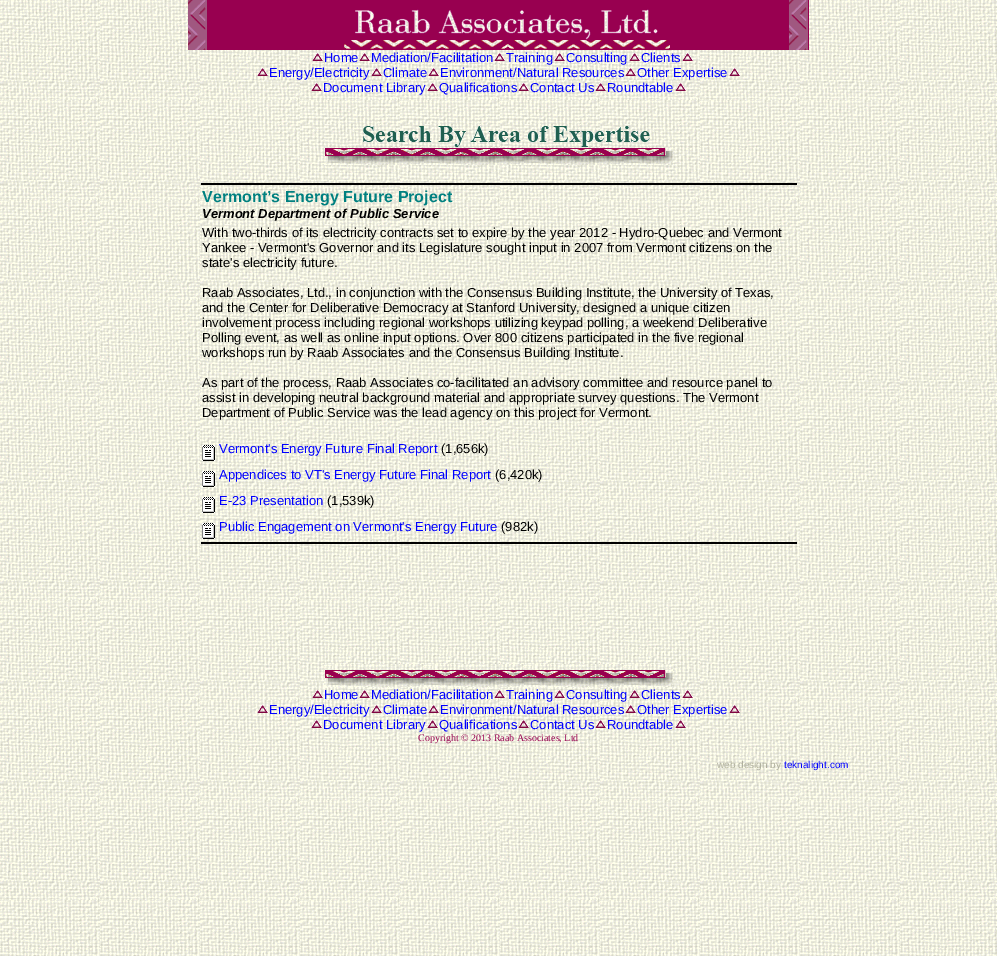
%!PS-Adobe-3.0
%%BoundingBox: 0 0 997 956
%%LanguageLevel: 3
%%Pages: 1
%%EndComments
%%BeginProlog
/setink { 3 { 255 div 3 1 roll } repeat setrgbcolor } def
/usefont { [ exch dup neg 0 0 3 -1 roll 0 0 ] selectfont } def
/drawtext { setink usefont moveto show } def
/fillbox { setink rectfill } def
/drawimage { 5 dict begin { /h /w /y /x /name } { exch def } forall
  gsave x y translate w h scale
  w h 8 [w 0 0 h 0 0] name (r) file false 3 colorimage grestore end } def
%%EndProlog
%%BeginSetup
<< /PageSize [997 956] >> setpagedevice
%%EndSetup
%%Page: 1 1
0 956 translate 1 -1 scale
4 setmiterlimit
0 0 997 956 255 255 255 fillbox
(assets/img1.rgb) 0 0 997 956 drawimage
(assets/img2.rgb) 188 0 20 50 drawimage
(assets/img3.rgb) 208 0 581 50 drawimage
(assets/img2.rgb) 789 0 20 50 drawimage
(assets/img4.rgb) 312 53 11 8 drawimage
(Home) 324 62 /LiberationSans-Regular 13 0 0 255 drawtext
(assets/img5.rgb) 359 53 11 8 drawimage
(Mediation/Facilitation) 371 62 /LiberationSans-Regular 13 0 0 255 drawtext
(assets/img6.rgb) 494 53 11 8 drawimage
(Training) 506 62 /LiberationSans-Regular 13 0 0 255 drawtext
(assets/img7.rgb) 554 53 11 8 drawimage
(Consulting) 566 62 /LiberationSans-Regular 13 0 0 255 drawtext
(assets/img8.rgb) 629 53 11 8 drawimage
(Clients) 641 62 /LiberationSans-Regular 13 0 0 255 drawtext
(assets/img9.rgb) 682 53 11 8 drawimage
(assets/img10.rgb) 257 68 11 8 drawimage
(Energy/Electricity) 269 77 /LiberationSans-Regular 13 0 0 255 drawtext
(assets/img11.rgb) 371 68 11 8 drawimage
(Climate) 383 77 /LiberationSans-Regular 13 0 0 255 drawtext
(assets/img12.rgb) 428 68 11 8 drawimage
(Environment/Natural Resources) 440 77 /LiberationSans-Regular 13 0 0 255 drawtext
(assets/img13.rgb) 625 68 11 8 drawimage
(Other Expertise) 637 77 /LiberationSans-Regular 13 0 0 255 drawtext
(assets/img14.rgb) 729 68 11 8 drawimage
(assets/img15.rgb) 311 83 11 8 drawimage
(Document Library) 323 92 /LiberationSans-Regular 13 0 0 255 drawtext
(assets/img16.rgb) 427 83 11 8 drawimage
(Qualifications) 439 92 /LiberationSans-Regular 13 0 0 255 drawtext
(assets/img17.rgb) 518 83 11 8 drawimage
(Contact Us) 530 92 /LiberationSans-Regular 13 0 0 255 drawtext
(assets/img18.rgb) 595 83 11 8 drawimage
(Roundtable) 607 92 /LiberationSans-Regular 13 0 0 255 drawtext
(assets/img19.rgb) 675 83 11 8 drawimage
(assets/img20.rgb) 363 126 287 21 drawimage
(assets/img21.rgb) 324 147 349 18 drawimage
201 183 596 2 0 0 0 fillbox
(Vermont’s Energy Future Project) 202 202 /LiberationSans-Bold 16 0 128 128 drawtext
(Vermont Department of Public Service) 202 218 /LiberationSans-BoldItalic 13 0 0 0 drawtext
(With two-thirds of its electricity contracts set to expire by the year 2012 - Hydro-Quebec and Vermont) 202 237 /LiberationSans-Regular 13 0 0 0 drawtext
(Yankee - Vermont's Governor and its Legislature sought input in 2007 from Vermont citizens on the) 202 252 /LiberationSans-Regular 13 0 0 0 drawtext
(state's electricity future.) 202 267 /LiberationSans-Regular 13 0 0 0 drawtext
(Raab Associates, Ltd., in conjunction with the Consensus Building Institute, the University of Texas,) 202 297 /LiberationSans-Regular 13 0 0 0 drawtext
(and the Center for Deliberative Democracy at Stanford University, designed a unique citizen) 202 312 /LiberationSans-Regular 13 0 0 0 drawtext
(involvement process including regional workshops utilizing keypad polling, a weekend Deliberative) 202 327 /LiberationSans-Regular 13 0 0 0 drawtext
(Polling event, as well as online input options. Over 800 citizens participated in the five regional) 202 342 /LiberationSans-Regular 13 0 0 0 drawtext
(workshops run by Raab Associates and the Consensus Building Institute.) 202 357 /LiberationSans-Regular 13 0 0 0 drawtext
(As part of the process, Raab Associates co-facilitated an advisory committee and resource panel to) 202 387 /LiberationSans-Regular 13 0 0 0 drawtext
(assist in developing neutral background material and appropriate survey questions. The Vermont) 202 402 /LiberationSans-Regular 13 0 0 0 drawtext
(Department of Public Service was the lead agency on this project for Vermont.) 202 417 /LiberationSans-Regular 13 0 0 0 drawtext
(assets/img22.rgb) 202 445 13 16 drawimage
(Vermont's Energy Future Final Report) 219 453 /LiberationSans-Regular 13 0 0 255 drawtext
(\(1,656k\)) 441 453 /LiberationSans-Regular 13 0 0 0 drawtext
(assets/img22.rgb) 202 471 13 16 drawimage
(Appendices to VT's Energy Future Final Report) 219 479 /LiberationSans-Regular 13 0 0 255 drawtext
(\(6,420k\)) 495 479 /LiberationSans-Regular 13 0 0 0 drawtext
(assets/img22.rgb) 202 497 13 16 drawimage
(E-23 Presentation) 219 505 /LiberationSans-Regular 13 0 0 255 drawtext
(\(1,539k\)) 327 505 /LiberationSans-Regular 13 0 0 0 drawtext
(assets/img22.rgb) 202 523 13 16 drawimage
(Public Engagement on Vermont's Energy Future) 219 531 /LiberationSans-Regular 13 0 0 255 drawtext
(\(982k\)) 501 531 /LiberationSans-Regular 13 0 0 0 drawtext
201 542 596 2 0 0 0 fillbox
(assets/img23.rgb) 324 664 349 23 drawimage
(assets/img24.rgb) 312 690 11 8 drawimage
(Home) 324 699 /LiberationSans-Regular 13 0 0 255 drawtext
(assets/img25.rgb) 359 690 11 8 drawimage
(Mediation/Facilitation) 371 699 /LiberationSans-Regular 13 0 0 255 drawtext
(assets/img26.rgb) 494 690 11 8 drawimage
(Training) 506 699 /LiberationSans-Regular 13 0 0 255 drawtext
(assets/img27.rgb) 554 690 11 8 drawimage
(Consulting) 566 699 /LiberationSans-Regular 13 0 0 255 drawtext
(assets/img28.rgb) 629 690 11 8 drawimage
(Clients) 641 699 /LiberationSans-Regular 13 0 0 255 drawtext
(assets/img29.rgb) 682 690 11 8 drawimage
(assets/img30.rgb) 257 705 11 8 drawimage
(Energy/Electricity) 269 714 /LiberationSans-Regular 13 0 0 255 drawtext
(assets/img31.rgb) 371 705 11 8 drawimage
(Climate) 383 714 /LiberationSans-Regular 13 0 0 255 drawtext
(assets/img32.rgb) 428 705 11 8 drawimage
(Environment/Natural Resources) 440 714 /LiberationSans-Regular 13 0 0 255 drawtext
(assets/img33.rgb) 625 705 11 8 drawimage
(Other Expertise) 637 714 /LiberationSans-Regular 13 0 0 255 drawtext
(assets/img34.rgb) 729 705 11 8 drawimage
(assets/img35.rgb) 311 720 11 8 drawimage
(Document Library) 323 729 /LiberationSans-Regular 13 0 0 255 drawtext
(assets/img36.rgb) 427 720 11 8 drawimage
(Qualifications) 439 729 /LiberationSans-Regular 13 0 0 255 drawtext
(assets/img37.rgb) 518 720 11 8 drawimage
(Contact Us) 530 729 /LiberationSans-Regular 13 0 0 255 drawtext
(assets/img38.rgb) 595 720 11 8 drawimage
(Roundtable) 607 729 /LiberationSans-Regular 13 0 0 255 drawtext
(assets/img39.rgb) 675 720 11 8 drawimage
(Copyright © 2013 Raab Associates, Ltd) 418 741 /LiberationSerif-Regular 10 152 0 80 drawtext
(web design by) 717 768 /LiberationSans-Regular 10 177 177 158 drawtext
(teknalight.com) 784 768 /LiberationSans-Regular 10 0 0 255 drawtext
showpage
%%EOF
